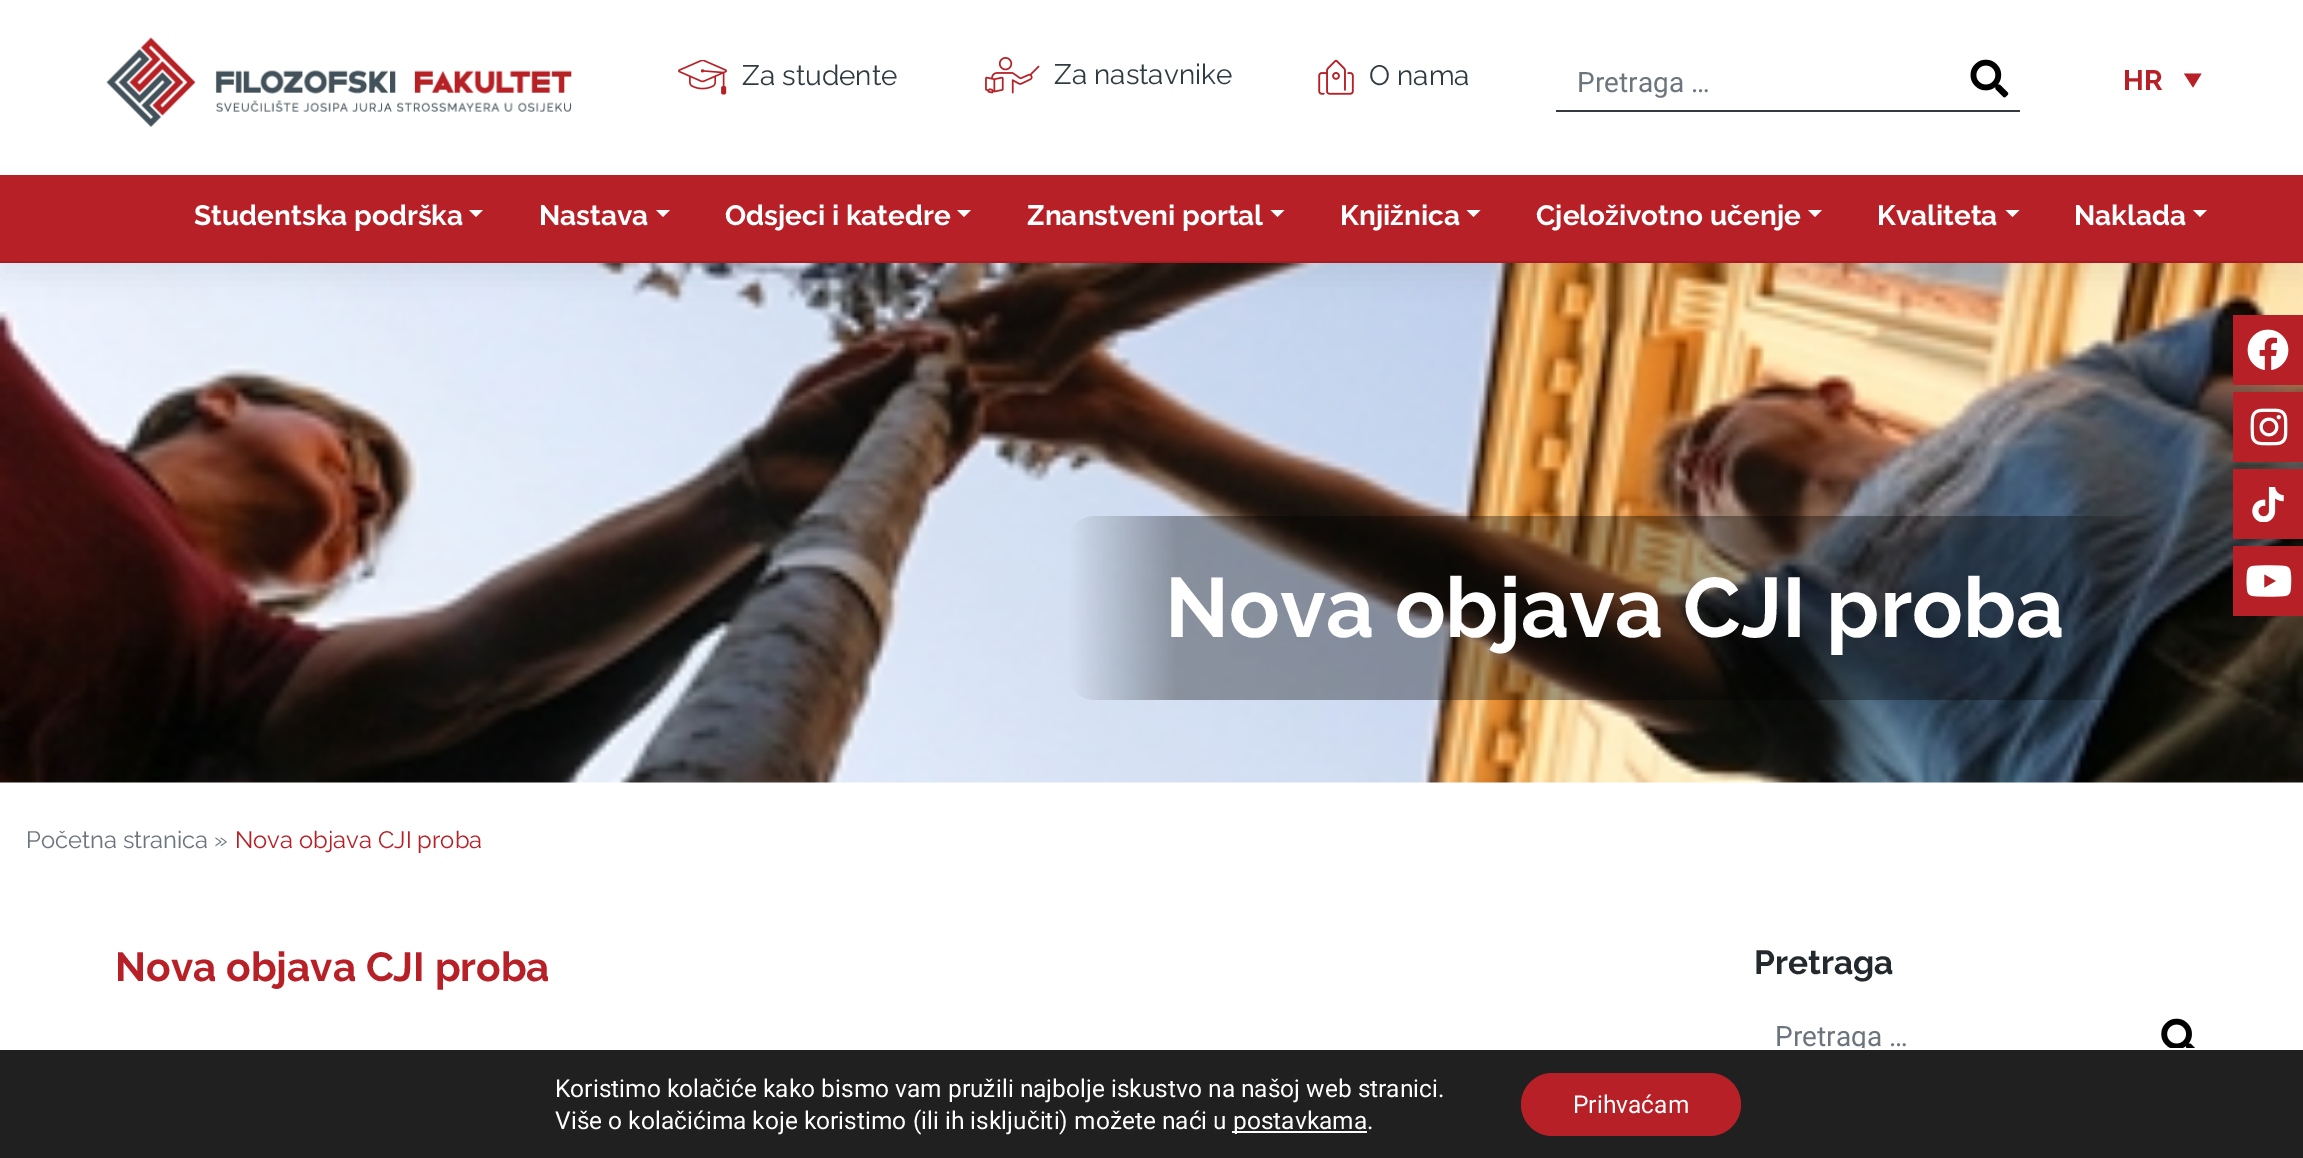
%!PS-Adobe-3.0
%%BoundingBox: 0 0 2303 1158
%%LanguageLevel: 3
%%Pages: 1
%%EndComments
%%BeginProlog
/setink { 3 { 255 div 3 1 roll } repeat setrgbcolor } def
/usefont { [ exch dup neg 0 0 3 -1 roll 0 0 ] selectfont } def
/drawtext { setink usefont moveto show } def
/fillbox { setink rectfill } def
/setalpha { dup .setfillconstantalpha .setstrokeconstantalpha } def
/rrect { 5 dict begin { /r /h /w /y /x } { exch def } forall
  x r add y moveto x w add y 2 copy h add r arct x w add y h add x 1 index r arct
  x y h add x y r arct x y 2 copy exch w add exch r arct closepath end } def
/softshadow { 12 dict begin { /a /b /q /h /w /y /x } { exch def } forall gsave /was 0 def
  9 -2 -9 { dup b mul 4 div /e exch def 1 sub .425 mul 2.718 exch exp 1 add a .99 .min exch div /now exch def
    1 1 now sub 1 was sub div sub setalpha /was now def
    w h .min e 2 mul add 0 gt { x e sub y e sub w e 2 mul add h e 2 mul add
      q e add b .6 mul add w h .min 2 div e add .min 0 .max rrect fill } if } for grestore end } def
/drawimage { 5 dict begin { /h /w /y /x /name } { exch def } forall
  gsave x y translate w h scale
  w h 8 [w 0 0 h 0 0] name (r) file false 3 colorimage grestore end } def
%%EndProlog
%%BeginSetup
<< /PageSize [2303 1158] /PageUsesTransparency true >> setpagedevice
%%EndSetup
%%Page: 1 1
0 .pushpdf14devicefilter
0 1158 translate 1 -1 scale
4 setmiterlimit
0 0 2303 1158 255 255 255 fillbox
(assets/img1.rgb) 106 37 466 90 drawimage
(assets/img2.rgb) 678 60 49 35 drawimage
(Za studente) 742 85 /Raleway-Regular 28 48 59 65 drawtext
(assets/img3.rgb) 985 57 55 37 drawimage
(Za nastavnike) 1054 84 /Raleway-Regular 28 48 59 65 drawtext
(assets/img4.rgb) 1318 60 36 35 drawimage
(O nama) 1369 85 /Raleway-Regular 28 48 59 65 drawtext
1556 110 464 2 52 58 64 fillbox
(Pretraga …) 1577 92 /Roboto-Regular 28 108 117 125 drawtext
(assets/img5.rgb) 1970 59 39 39 drawimage
(HR) 2123 90 /Raleway-Bold 28 183 32 38 drawtext
2184 73.5 moveto 2201.5 73.5 lineto 2193 87.5 lineto closepath fill
(assets/img6.rgb) 0 263 2303 520 drawimage
2233 315 70 70 183 32 38 fillbox
0 0 0 setink
0 189 2303 88 0 14 0.05 softshadow
0 175 2303 86 183 32 38 fillbox
0 261 2303 2 165 29 34 fillbox
(Studentska podrška) 194 225 /Raleway-Bold 28 255 255 255 drawtext
469 210 moveto 483 210 lineto 476 217 lineto closepath fill
(Nastava) 539 225 /Raleway-Bold 28 255 255 255 drawtext
656 210 moveto 670 210 lineto 663 217 lineto closepath fill
(Odsjeci i katedre) 725 225 /Raleway-Bold 28 255 255 255 drawtext
957 210 moveto 971 210 lineto 964 217 lineto closepath fill
(Znanstveni portal) 1027 225 /Raleway-Bold 28 255 255 255 drawtext
1270.5 210 moveto 1284.5 210 lineto 1277.5 217 lineto closepath fill
(Knjižnica) 1340 225 /Raleway-Bold 28 255 255 255 drawtext
1466.5 210 moveto 1480.5 210 lineto 1473.5 217 lineto closepath fill
(Cjeloživotno učenje) 1536 225 /Raleway-Bold 28 255 255 255 drawtext
1808 210 moveto 1822 210 lineto 1815 217 lineto closepath fill
(Kvaliteta) 1877 225 /Raleway-Bold 28 255 255 255 drawtext
2005.5 210 moveto 2019.5 210 lineto 2012.5 217 lineto closepath fill
(Naklada) 2074 225 /Raleway-Bold 28 255 255 255 drawtext
2193 210 moveto 2207 210 lineto 2200 217 lineto closepath fill
(Nova objava CJI proba) 1165 637 /Raleway-Bold 84 255 255 255 drawtext
(Početna stranica ») 26 848 /Raleway-Regular 23.75 108 117 125 drawtext
(Nova objava CJI proba) 235 848 /Raleway-Regular 23.75 183 32 38 drawtext
(Nova objava CJI proba) 115 981 /Raleway-Bold 40.6 183 32 38 drawtext
(Pretraga) 1754 974 /Raleway-Bold 33.5 36 41 46 drawtext
(Pretraga …) 1775 1046 /Roboto-Regular 28 108 117 125 drawtext
(assets/img7.rgb) 2161 1018 34 30 drawimage
(assets/img8.rgb) 2247 329 42 41 drawimage
2233 392 70 70 183 32 38 fillbox
(assets/img9.rgb) 2250 408 38 38 drawimage
2233 469 70 70 183 32 38 fillbox
(assets/img10.rgb) 2252 487 32 35 drawimage
2233 546 70 70 183 32 38 fillbox
(assets/img11.rgb) 2246 565 46 32 drawimage
0 1050 2303 108 32 32 32 fillbox
1852 1048 12 2 255 255 255 fillbox
(Koristimo kolačiće kako bismo vam pružili najbolje iskustvo na našoj web stranici.) 555 1097 /Roboto-Regular 24.5 255 255 255 drawtext
(Više o kolačićima koje koristimo \(ili ih isključiti\) možete naći u) 555 1129 /Roboto-Regular 24.5 255 255 255 drawtext
1232 1131 135 2 255 255 255 fillbox
(postavkama.) 1233 1129 /Roboto-Regular 24.5 255 255 255 drawtext
183 32 38 setink
1521 1073 220 63 31.5 rrect fill
(Prihvaćam) 1573 1113 /Roboto-Regular 24.5 255 255 255 drawtext
.poppdf14devicefilter showpage
%%EOF
